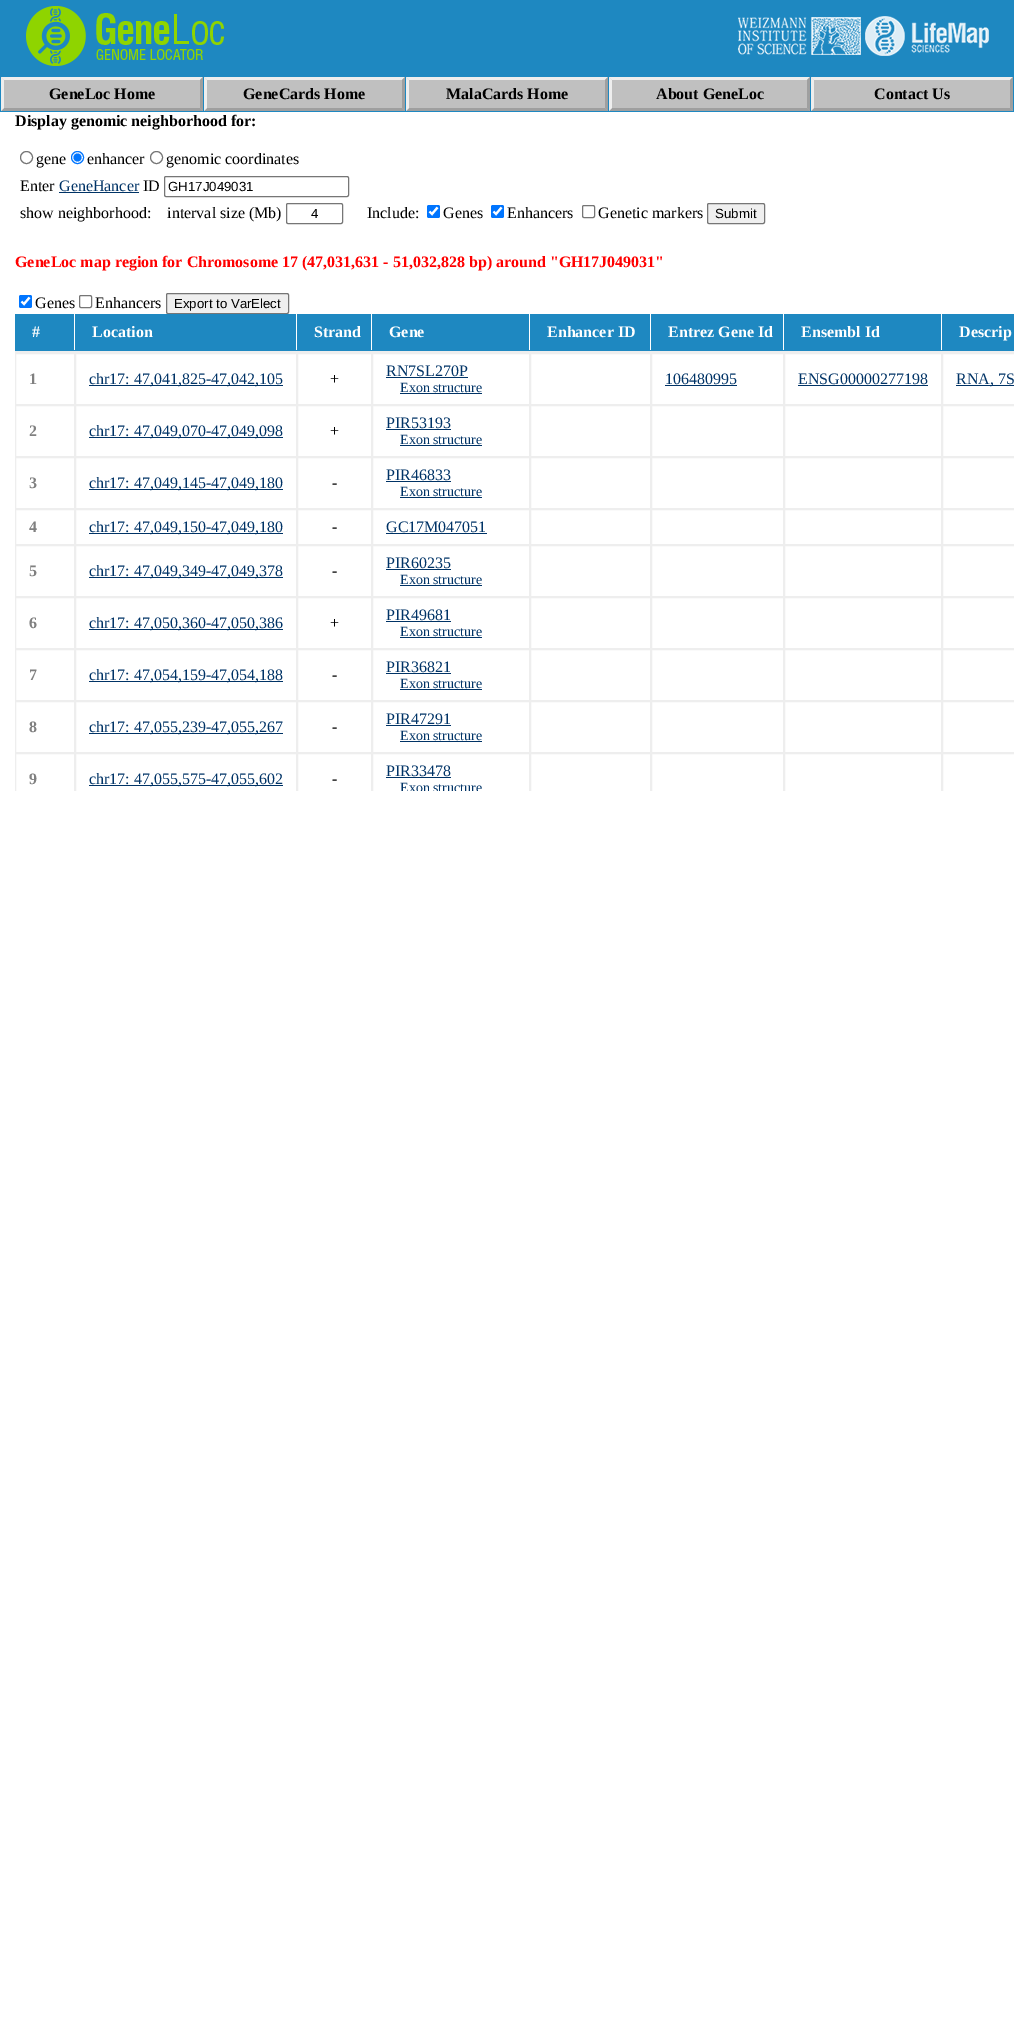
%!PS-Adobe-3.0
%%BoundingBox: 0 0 1014 2034
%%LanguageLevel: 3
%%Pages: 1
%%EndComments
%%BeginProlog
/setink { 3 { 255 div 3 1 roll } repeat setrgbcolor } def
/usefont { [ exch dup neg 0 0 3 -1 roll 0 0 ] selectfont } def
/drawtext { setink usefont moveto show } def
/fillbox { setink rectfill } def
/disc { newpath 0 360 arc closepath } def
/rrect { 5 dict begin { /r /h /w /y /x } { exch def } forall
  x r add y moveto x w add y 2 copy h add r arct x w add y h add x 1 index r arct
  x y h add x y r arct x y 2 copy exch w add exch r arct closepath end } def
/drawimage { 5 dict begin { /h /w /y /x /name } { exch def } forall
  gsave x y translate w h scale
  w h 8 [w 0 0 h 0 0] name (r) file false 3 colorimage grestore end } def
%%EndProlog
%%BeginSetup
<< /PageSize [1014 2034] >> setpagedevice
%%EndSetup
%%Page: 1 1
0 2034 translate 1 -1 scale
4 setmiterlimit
0 0 1014 2034 255 255 255 fillbox
0 0 1014 112 30 136 193 fillbox
(assets/img1.rgb) 26 6 198 60 drawimage
(assets/img2.rgb) 738 17 123 38 drawimage
(assets/img3.rgb) 865 16 124 40 drawimage
1 77 202 34 192 192 192 fillbox
238 238 238 setink
1 77 moveto 203 77 lineto 200 80 lineto 4 80 lineto closepath fill
159 159 159 setink
203 77 moveto 203 111 lineto 200 108 lineto 200 80 lineto closepath fill
203 111 moveto 1 111 lineto 4 108 lineto 200 108 lineto closepath fill
238 238 238 setink
1 111 moveto 1 77 lineto 4 80 lineto 4 108 lineto closepath fill
(GeneLoc Home) 49 99 /LiberationSerif-Bold 16 0 0 0 drawtext
204 77 201 34 192 192 192 fillbox
238 238 238 setink
204 77 moveto 405 77 lineto 402 80 lineto 207 80 lineto closepath fill
159 159 159 setink
405 77 moveto 405 111 lineto 402 108 lineto 402 80 lineto closepath fill
405 111 moveto 204 111 lineto 207 108 lineto 402 108 lineto closepath fill
238 238 238 setink
204 111 moveto 204 77 lineto 207 80 lineto 207 108 lineto closepath fill
(GeneCards Home) 243 99 /LiberationSerif-Bold 16 0 0 0 drawtext
406 77 202 34 192 192 192 fillbox
238 238 238 setink
406 77 moveto 608 77 lineto 605 80 lineto 409 80 lineto closepath fill
159 159 159 setink
608 77 moveto 608 111 lineto 605 108 lineto 605 80 lineto closepath fill
608 111 moveto 406 111 lineto 409 108 lineto 605 108 lineto closepath fill
238 238 238 setink
406 111 moveto 406 77 lineto 409 80 lineto 409 108 lineto closepath fill
(MalaCards Home) 446 99 /LiberationSerif-Bold 16 0 0 0 drawtext
609 77 201 34 192 192 192 fillbox
238 238 238 setink
609 77 moveto 810 77 lineto 807 80 lineto 612 80 lineto closepath fill
159 159 159 setink
810 77 moveto 810 111 lineto 807 108 lineto 807 80 lineto closepath fill
810 111 moveto 609 111 lineto 612 108 lineto 807 108 lineto closepath fill
238 238 238 setink
609 111 moveto 609 77 lineto 612 80 lineto 612 108 lineto closepath fill
(About GeneLoc) 656 99 /LiberationSerif-Bold 16 0 0 0 drawtext
811 77 202 34 192 192 192 fillbox
238 238 238 setink
811 77 moveto 1013 77 lineto 1010 80 lineto 814 80 lineto closepath fill
159 159 159 setink
1013 77 moveto 1013 111 lineto 1010 108 lineto 1010 80 lineto closepath fill
1013 111 moveto 811 111 lineto 814 108 lineto 1010 108 lineto closepath fill
238 238 238 setink
811 111 moveto 811 77 lineto 814 80 lineto 814 108 lineto closepath fill
(Contact Us) 874 99 /LiberationSerif-Bold 16 0 0 0 drawtext
(Display genomic neighborhood for:) 15 126 /LiberationSerif-Bold 16 0 0 0 drawtext
118 118 118 setink
26.5 157.5 6 disc stroke
(gene) 36 164 /LiberationSerif-Regular 16 0 0 0 drawtext
0 117 255 setink
77.5 157.5 6 disc stroke
77.5 157.5 4 disc fill
(enhancer) 87 164 /LiberationSerif-Regular 16 0 0 0 drawtext
118 118 118 setink
156.5 157.5 6 disc stroke
(genomic coordinates) 166 164 /LiberationSerif-Regular 16 0 0 0 drawtext
(Enter) 20 191 /LiberationSerif-Regular 16 0 0 0 drawtext
(GeneHancer) 59 191 /LiberationSerif-Regular 16 0 51 102 drawtext
59 192 80 1 0 51 102 fillbox
(ID) 143 191 /LiberationSerif-Regular 16 0 0 0 drawtext
118 118 118 setink
164.5 176.5 184 20 1.5 rrect stroke
(GH17J049031) 168 191 /LiberationSans-Regular 13.25 0 0 0 drawtext
(show neighborhood:    interval size \(Mb\)) 20 218 /LiberationSerif-Regular 16 0 0 0 drawtext
118 118 118 setink
286.5 203.5 56 20 1.5 rrect stroke
(4) 311 218 /LiberationSans-Regular 13.25 0 0 0 drawtext
(Include:) 367 218 /LiberationSerif-Regular 16 0 0 0 drawtext
0 117 255 setink
427 205 13 13 2 rrect fill
255 255 255 setink
2.1 setlinewidth
429.5 211.5 moveto 432 214 lineto 437.5 207.5 lineto stroke
(Genes) 443 218 /LiberationSerif-Regular 16 0 0 0 drawtext
0 117 255 setink
491 205 13 13 2 rrect fill
255 255 255 setink
493.5 211.5 moveto 496 214 lineto 501.5 207.5 lineto stroke
(Enhancers) 507 218 /LiberationSerif-Regular 16 0 0 0 drawtext
118 118 118 setink
1 setlinewidth
582.5 205.5 12 12 1.5 rrect stroke
(Genetic markers) 598 218 /LiberationSerif-Regular 16 0 0 0 drawtext
239 239 239 setink
707.5 203.5 57 20 1.5 rrect gsave fill grestore
118 118 118 setink
stroke
(Submit) 715 218 /LiberationSans-Regular 13.25 0 0 0 drawtext
(GeneLoc map region for Chromosome 17 \(47,031,631 - 51,032,828 bp\) around "GH17J049031") 15 267 /LiberationSerif-Bold 16 255 0 0 drawtext
0 117 255 setink
19 295 13 13 2 rrect fill
255 255 255 setink
2.1 setlinewidth
21.5 301.5 moveto 24 304 lineto 29.5 297.5 lineto stroke
(Genes) 35 308 /LiberationSerif-Regular 16 0 0 0 drawtext
118 118 118 setink
1 setlinewidth
79.5 295.5 12 12 1.5 rrect stroke
(Enhancers) 95 308 /LiberationSerif-Regular 16 0 0 0 drawtext
239 239 239 setink
166.5 293.5 122 20 1.5 rrect gsave fill grestore
118 118 118 setink
stroke
(Export to VarElect) 174 308 /LiberationSans-Regular 13.25 0 0 0 drawtext
15 314 999 37 30 136 193 fillbox
15 351 999 2 238 238 238 fillbox
(#) 32 337 /LiberationSerif-Bold 16 255 255 255 drawtext
74 314 1 36 255 255 255 fillbox
(Location) 92 337 /LiberationSerif-Bold 16 255 255 255 drawtext
296 314 1 36 255 255 255 fillbox
(Strand) 314 337 /LiberationSerif-Bold 16 255 255 255 drawtext
371 314 1 36 255 255 255 fillbox
(Gene) 389 337 /LiberationSerif-Bold 16 255 255 255 drawtext
529 314 1 36 255 255 255 fillbox
(Enhancer ID) 547 337 /LiberationSerif-Bold 16 255 255 255 drawtext
650 314 1 36 255 255 255 fillbox
(Entrez Gene Id) 668 337 /LiberationSerif-Bold 16 255 255 255 drawtext
783 314 1 36 255 255 255 fillbox
(Ensembl Id) 801 337 /LiberationSerif-Bold 16 255 255 255 drawtext
941 314 1 36 255 255 255 fillbox
(Descrip) 959 337 /LiberationSerif-Bold 16 255 255 255 drawtext
238 238 238 setink
15.5 353.5 59 51 rectstroke
(1) 29 384 /LiberationSerif-Bold 16 128 128 128 drawtext
238 238 238 setink
75.5 353.5 221 51 rectstroke
89 385 194 1 0 51 102 fillbox
(chr17: 47,041,825-47,042,105) 89 384 /LiberationSerif-Regular 16 0 51 102 drawtext
238 238 238 setink
297.5 353.5 74 51 rectstroke
(+) 330 384 /LiberationSerif-Regular 16 0 0 0 drawtext
238 238 238 setink
372.5 353.5 157 51 rectstroke
(RN7SL270P) 386 376 /LiberationSerif-Regular 16 0 51 102 drawtext
386 377 82 1 0 51 102 fillbox
(Exon structure) 400 392 /LiberationSerif-Regular 14 0 51 102 drawtext
400 393 82 1 0 51 102 fillbox
238 238 238 setink
530.5 353.5 120 51 rectstroke
651.5 353.5 132 51 rectstroke
(106480995) 665 384 /LiberationSerif-Regular 16 0 51 102 drawtext
665 385 72 1 0 51 102 fillbox
238 238 238 setink
784.5 353.5 157 51 rectstroke
(ENSG00000277198) 798 384 /LiberationSerif-Regular 16 0 51 102 drawtext
798 385 130 1 0 51 102 fillbox
238 238 238 setink
942.5 353.5 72 51 rectstroke
956 385 58 1 0 51 102 fillbox
(RNA, 7S) 956 384 /LiberationSerif-Regular 16 0 51 102 drawtext
238 238 238 setink
15.5 405.5 59 51 rectstroke
(2) 29 436 /LiberationSerif-Bold 16 128 128 128 drawtext
238 238 238 setink
75.5 405.5 221 51 rectstroke
89 437 194 1 0 51 102 fillbox
(chr17: 47,049,070-47,049,098) 89 436 /LiberationSerif-Regular 16 0 51 102 drawtext
238 238 238 setink
297.5 405.5 74 51 rectstroke
(+) 330 436 /LiberationSerif-Regular 16 0 0 0 drawtext
238 238 238 setink
372.5 405.5 157 51 rectstroke
(PIR53193) 386 428 /LiberationSerif-Regular 16 0 51 102 drawtext
386 429 65 1 0 51 102 fillbox
(Exon structure) 400 444 /LiberationSerif-Regular 14 0 51 102 drawtext
400 445 82 1 0 51 102 fillbox
238 238 238 setink
530.5 405.5 120 51 rectstroke
651.5 405.5 132 51 rectstroke
784.5 405.5 157 51 rectstroke
942.5 405.5 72 51 rectstroke
15.5 457.5 59 51 rectstroke
(3) 29 488 /LiberationSerif-Bold 16 128 128 128 drawtext
238 238 238 setink
75.5 457.5 221 51 rectstroke
89 489 194 1 0 51 102 fillbox
(chr17: 47,049,145-47,049,180) 89 488 /LiberationSerif-Regular 16 0 51 102 drawtext
238 238 238 setink
297.5 457.5 74 51 rectstroke
(-) 332 488 /LiberationSerif-Regular 16 0 0 0 drawtext
238 238 238 setink
372.5 457.5 157 51 rectstroke
(PIR46833) 386 480 /LiberationSerif-Regular 16 0 51 102 drawtext
386 481 65 1 0 51 102 fillbox
(Exon structure) 400 496 /LiberationSerif-Regular 14 0 51 102 drawtext
400 497 82 1 0 51 102 fillbox
238 238 238 setink
530.5 457.5 120 51 rectstroke
651.5 457.5 132 51 rectstroke
784.5 457.5 157 51 rectstroke
942.5 457.5 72 51 rectstroke
15.5 509.5 59 35 rectstroke
(4) 29 532 /LiberationSerif-Bold 16 128 128 128 drawtext
238 238 238 setink
75.5 509.5 221 35 rectstroke
89 533 194 1 0 51 102 fillbox
(chr17: 47,049,150-47,049,180) 89 532 /LiberationSerif-Regular 16 0 51 102 drawtext
238 238 238 setink
297.5 509.5 74 35 rectstroke
(-) 332 532 /LiberationSerif-Regular 16 0 0 0 drawtext
238 238 238 setink
372.5 509.5 157 35 rectstroke
(GC17M047051) 386 532 /LiberationSerif-Regular 16 0 51 102 drawtext
386 533 101 1 0 51 102 fillbox
238 238 238 setink
530.5 509.5 120 35 rectstroke
651.5 509.5 132 35 rectstroke
784.5 509.5 157 35 rectstroke
942.5 509.5 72 35 rectstroke
15.5 545.5 59 51 rectstroke
(5) 29 576 /LiberationSerif-Bold 16 128 128 128 drawtext
238 238 238 setink
75.5 545.5 221 51 rectstroke
89 577 194 1 0 51 102 fillbox
(chr17: 47,049,349-47,049,378) 89 576 /LiberationSerif-Regular 16 0 51 102 drawtext
238 238 238 setink
297.5 545.5 74 51 rectstroke
(-) 332 576 /LiberationSerif-Regular 16 0 0 0 drawtext
238 238 238 setink
372.5 545.5 157 51 rectstroke
(PIR60235) 386 568 /LiberationSerif-Regular 16 0 51 102 drawtext
386 569 65 1 0 51 102 fillbox
(Exon structure) 400 584 /LiberationSerif-Regular 14 0 51 102 drawtext
400 585 82 1 0 51 102 fillbox
238 238 238 setink
530.5 545.5 120 51 rectstroke
651.5 545.5 132 51 rectstroke
784.5 545.5 157 51 rectstroke
942.5 545.5 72 51 rectstroke
15.5 597.5 59 51 rectstroke
(6) 29 628 /LiberationSerif-Bold 16 128 128 128 drawtext
238 238 238 setink
75.5 597.5 221 51 rectstroke
89 629 194 1 0 51 102 fillbox
(chr17: 47,050,360-47,050,386) 89 628 /LiberationSerif-Regular 16 0 51 102 drawtext
238 238 238 setink
297.5 597.5 74 51 rectstroke
(+) 330 628 /LiberationSerif-Regular 16 0 0 0 drawtext
238 238 238 setink
372.5 597.5 157 51 rectstroke
(PIR49681) 386 620 /LiberationSerif-Regular 16 0 51 102 drawtext
386 621 65 1 0 51 102 fillbox
(Exon structure) 400 636 /LiberationSerif-Regular 14 0 51 102 drawtext
400 637 82 1 0 51 102 fillbox
238 238 238 setink
530.5 597.5 120 51 rectstroke
651.5 597.5 132 51 rectstroke
784.5 597.5 157 51 rectstroke
942.5 597.5 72 51 rectstroke
15.5 649.5 59 51 rectstroke
(7) 29 680 /LiberationSerif-Bold 16 128 128 128 drawtext
238 238 238 setink
75.5 649.5 221 51 rectstroke
89 681 194 1 0 51 102 fillbox
(chr17: 47,054,159-47,054,188) 89 680 /LiberationSerif-Regular 16 0 51 102 drawtext
238 238 238 setink
297.5 649.5 74 51 rectstroke
(-) 332 680 /LiberationSerif-Regular 16 0 0 0 drawtext
238 238 238 setink
372.5 649.5 157 51 rectstroke
(PIR36821) 386 672 /LiberationSerif-Regular 16 0 51 102 drawtext
386 673 65 1 0 51 102 fillbox
(Exon structure) 400 688 /LiberationSerif-Regular 14 0 51 102 drawtext
400 689 82 1 0 51 102 fillbox
238 238 238 setink
530.5 649.5 120 51 rectstroke
651.5 649.5 132 51 rectstroke
784.5 649.5 157 51 rectstroke
942.5 649.5 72 51 rectstroke
15.5 701.5 59 51 rectstroke
(8) 29 732 /LiberationSerif-Bold 16 128 128 128 drawtext
238 238 238 setink
75.5 701.5 221 51 rectstroke
89 733 194 1 0 51 102 fillbox
(chr17: 47,055,239-47,055,267) 89 732 /LiberationSerif-Regular 16 0 51 102 drawtext
238 238 238 setink
297.5 701.5 74 51 rectstroke
(-) 332 732 /LiberationSerif-Regular 16 0 0 0 drawtext
238 238 238 setink
372.5 701.5 157 51 rectstroke
(PIR47291) 386 724 /LiberationSerif-Regular 16 0 51 102 drawtext
386 725 65 1 0 51 102 fillbox
(Exon structure) 400 740 /LiberationSerif-Regular 14 0 51 102 drawtext
400 741 82 1 0 51 102 fillbox
238 238 238 setink
530.5 701.5 120 51 rectstroke
651.5 701.5 132 51 rectstroke
784.5 701.5 157 51 rectstroke
942.5 701.5 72 51 rectstroke
gsave
15 351 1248 440 rectclip
15.5 753.5 59 51 rectstroke
grestore
(9) 29 784 /LiberationSerif-Bold 16 128 128 128 drawtext
gsave
15 351 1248 440 rectclip
238 238 238 setink
75.5 753.5 221 51 rectstroke
grestore
89 785 194 1 0 51 102 fillbox
(chr17: 47,055,575-47,055,602) 89 784 /LiberationSerif-Regular 16 0 51 102 drawtext
gsave
15 351 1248 440 rectclip
238 238 238 setink
297.5 753.5 74 51 rectstroke
grestore
(-) 332 784 /LiberationSerif-Regular 16 0 0 0 drawtext
gsave
15 351 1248 440 rectclip
238 238 238 setink
372.5 753.5 157 51 rectstroke
grestore
(PIR33478) 386 776 /LiberationSerif-Regular 16 0 51 102 drawtext
386 777 65 1 0 51 102 fillbox
gsave
15 351 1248 440 rectclip
(Exon structure) 400 792 /LiberationSerif-Regular 14 0 51 102 drawtext
238 238 238 setink
530.5 753.5 120 51 rectstroke
651.5 753.5 132 51 rectstroke
784.5 753.5 157 51 rectstroke
942.5 753.5 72 51 rectstroke
grestore
showpage
%%EOF
